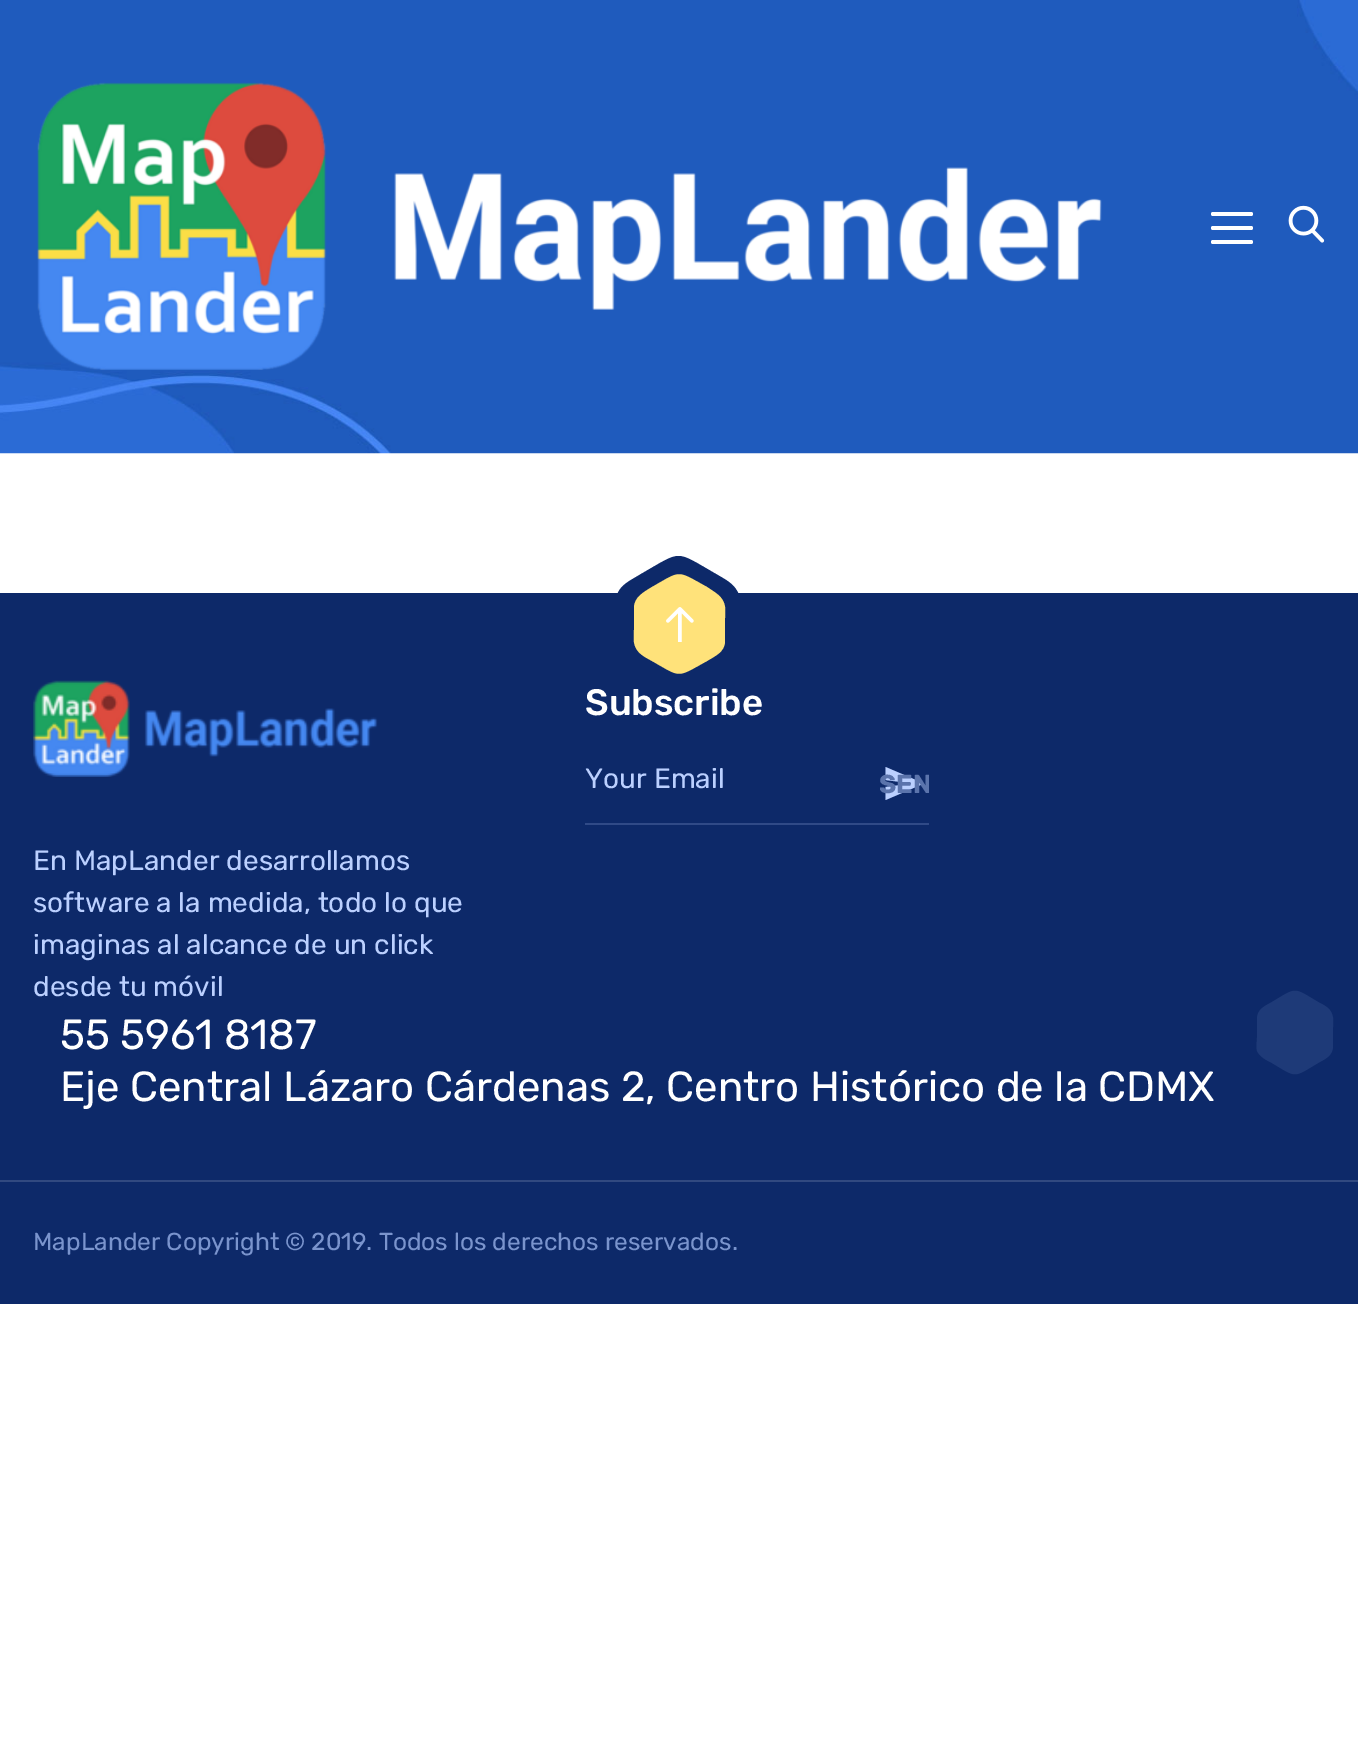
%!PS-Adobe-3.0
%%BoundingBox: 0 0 1358 1742
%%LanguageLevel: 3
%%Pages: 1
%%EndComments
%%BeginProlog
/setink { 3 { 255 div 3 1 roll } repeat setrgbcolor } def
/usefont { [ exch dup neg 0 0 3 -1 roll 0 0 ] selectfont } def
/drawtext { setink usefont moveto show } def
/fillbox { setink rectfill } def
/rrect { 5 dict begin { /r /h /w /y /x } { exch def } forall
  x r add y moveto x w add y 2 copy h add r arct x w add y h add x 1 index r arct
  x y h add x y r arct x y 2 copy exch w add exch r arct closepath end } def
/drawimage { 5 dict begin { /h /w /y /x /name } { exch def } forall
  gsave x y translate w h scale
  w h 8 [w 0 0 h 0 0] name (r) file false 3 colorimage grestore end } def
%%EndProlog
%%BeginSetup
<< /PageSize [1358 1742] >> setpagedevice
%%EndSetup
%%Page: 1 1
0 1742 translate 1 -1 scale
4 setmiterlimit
0 0 1358 1742 255 255 255 fillbox
(assets/img1.rgb) 0 0 1358 454 drawimage
(assets/img2.rgb) 37 82 1065 288 drawimage
1211 226 42 4 2 rrect fill
1211 212 42 4 2 rrect fill
1211 240 42 4 2 rrect fill
(assets/img3.rgb) 1288 205 37 38 drawimage
0 593 1358 711 13 41 105 fillbox
616 602 moveto 616 586 630 581 641 574 curveto 683 550 674 550 716 574 curveto 726 580 735 584 739 595 curveto 742 602 741 610 741 617 curveto 741 647 lineto 741 662 727 668 716 674 curveto 674 699 683 699 641 674 curveto 631 669 622 665 618 654 curveto 615 647 616 639 616 632 curveto closepath fill
255 226 122 setink
634 608 moveto 634 597 644 592 652 587 curveto 682 570 676 570 707 587 curveto 714 592 721 595 724 603 curveto 726 608 725 613 725 619 curveto 725 641 lineto 725 652 715 656 707 661 curveto 676 678 682 678 652 661 curveto 645 657 638 654 635 646 curveto 633 641 634 635 634 629 curveto closepath fill
(assets/img4.rgb) 666 607 28 35 drawimage
(Subscribe) 585 715 /Rubik-Medium 36.75 255 255 255 drawtext
585 823 344 2 48 74 135 fillbox
(Your Email) 585 788 /Rubik-Regular 28 187 208 255 drawtext
885.5 800 moveto 885.5 787 lineto 913 783.5 lineto 885.5 780 lineto 885.5 767 lineto 924 783.5 lineto closepath fill
gsave
880 742 49 82 24.5 rrect clip newpath
(SEN) 879 793 /Rubik-Bold 26 91 116 172 drawtext
grestore
(assets/img5.rgb) 33 680 345 97 drawimage
(En MapLander desarrollamos) 33 870 /Rubik-Regular 28 187 208 255 drawtext
(software a la medida, todo lo que) 33 912 /Rubik-Regular 28 187 208 255 drawtext
(imaginas al alcance de un click) 33 954 /Rubik-Regular 28 187 208 255 drawtext
(desde tu móvil) 33 996 /Rubik-Regular 28 187 208 255 drawtext
(55 5961 8187) 60 1049 /Rubik-Regular 42 255 255 255 drawtext
(Eje Central Lázaro Cárdenas 2, Centro Histórico de la CDMX) 60 1101 /Rubik-Regular 42 255 255 255 drawtext
30 58 120 setink
1257 1019 moveto 1257 1009 1265 1006 1272 1002 curveto 1297 987 1293 987 1318 1002 curveto 1324 1005 1330 1008 1332 1014 curveto 1334 1019 1333 1024 1333 1028 curveto 1333 1046 lineto 1333 1056 1325 1059 1318 1063 curveto 1293 1078 1297 1078 1272 1063 curveto 1266 1060 1260 1057 1257 1051 curveto 1256 1046 1257 1041 1257 1037 curveto closepath fill
0 1180 1358 2 49 73 128 fillbox
(MapLander Copyright © 2019. Todos los derechos reservados.) 33 1250 /Rubik-Regular 24.5 122 148 205 drawtext
showpage
%%EOF
